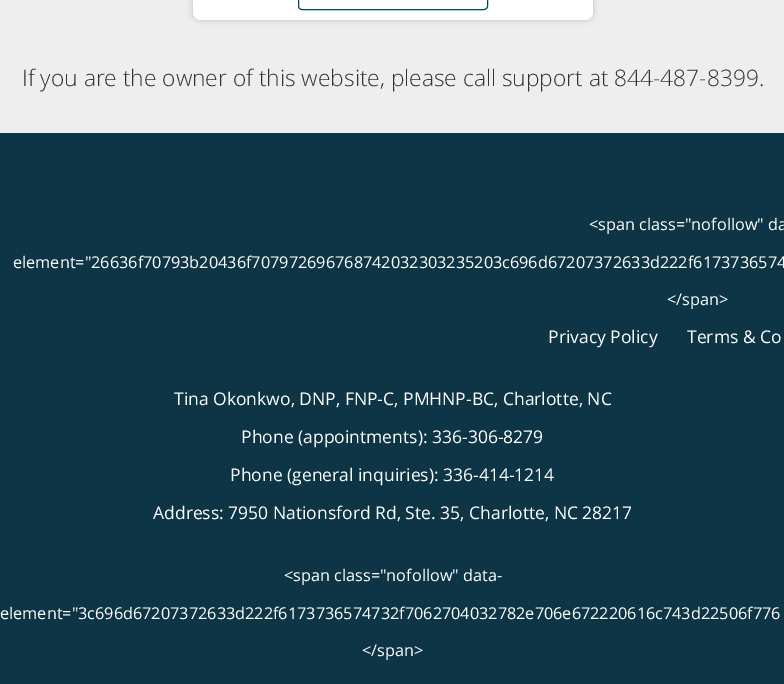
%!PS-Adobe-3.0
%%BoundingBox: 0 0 784 684
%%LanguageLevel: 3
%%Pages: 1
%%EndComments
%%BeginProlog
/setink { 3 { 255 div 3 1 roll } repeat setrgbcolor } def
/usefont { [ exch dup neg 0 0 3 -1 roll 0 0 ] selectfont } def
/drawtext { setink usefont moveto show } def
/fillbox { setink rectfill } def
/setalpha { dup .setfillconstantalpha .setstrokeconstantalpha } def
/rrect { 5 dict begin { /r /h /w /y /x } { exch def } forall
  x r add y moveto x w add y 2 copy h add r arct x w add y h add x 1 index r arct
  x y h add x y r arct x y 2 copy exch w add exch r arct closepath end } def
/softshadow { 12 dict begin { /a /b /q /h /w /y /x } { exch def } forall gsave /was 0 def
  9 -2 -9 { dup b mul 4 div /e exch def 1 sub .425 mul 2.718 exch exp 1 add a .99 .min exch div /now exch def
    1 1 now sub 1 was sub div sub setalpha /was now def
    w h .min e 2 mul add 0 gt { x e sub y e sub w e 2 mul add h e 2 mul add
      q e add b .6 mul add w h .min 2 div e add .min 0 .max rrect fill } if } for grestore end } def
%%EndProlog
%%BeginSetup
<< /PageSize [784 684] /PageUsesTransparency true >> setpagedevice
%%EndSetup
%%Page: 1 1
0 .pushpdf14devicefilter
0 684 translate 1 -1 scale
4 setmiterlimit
0 0 784 684 13 53 69 fillbox
0 0 784 133 238 238 238 fillbox
0 0 0 setink
193 -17 400 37 8 3 0.2 softshadow
255 255 255 setink
193 -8 400 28 8 rrect fill
0 72 82 setink
298.5 -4.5 189 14 3.5 rrect stroke
(If you are the owner of this website, please call support at 844-487-8399.) 22 86 /OpenSans-Light 22.75 51 51 51 drawtext
(<span class="nofollow" da) 589 230 /OpenSans-Regular 16.25 255 255 255 drawtext
(element="26636f70793b20436f707972696768742032303235203c696d67207372633d222f6173736574) 13 268 /OpenSans-Regular 16.25 255 255 255 drawtext
(</span>) 667 305 /OpenSans-Regular 16.25 255 255 255 drawtext
(Privacy Policy) 548 343 /OpenSans-Regular 17.5 255 255 255 drawtext
(Terms & Co) 687 343 /OpenSans-Regular 17.5 255 255 255 drawtext
(Tina Okonkwo, DNP, FNP-C, PMHNP-BC, Charlotte, NC) 174 405 /OpenSans-Regular 17.5 255 255 255 drawtext
(Phone \(appointments\): 336-306-8279) 241 443 /OpenSans-Regular 17.5 255 255 255 drawtext
(Phone \(general inquiries\): 336-414-1214) 230 481 /OpenSans-Regular 17.5 255 255 255 drawtext
(Address: 7950 Nationsford Rd, Ste. 35, Charlotte, NC 28217) 153 519 /OpenSans-Regular 17.5 255 255 255 drawtext
(<span class="nofollow" data-) 284 581 /OpenSans-Regular 16.25 255 255 255 drawtext
(element="3c696d67207372633d222f6173736574732f7062704032782e706e672220616c743d22506f776) 0 619 /OpenSans-Regular 16.25 255 255 255 drawtext
(</span>) 362 656 /OpenSans-Regular 16.25 255 255 255 drawtext
.poppdf14devicefilter showpage
%%EOF
